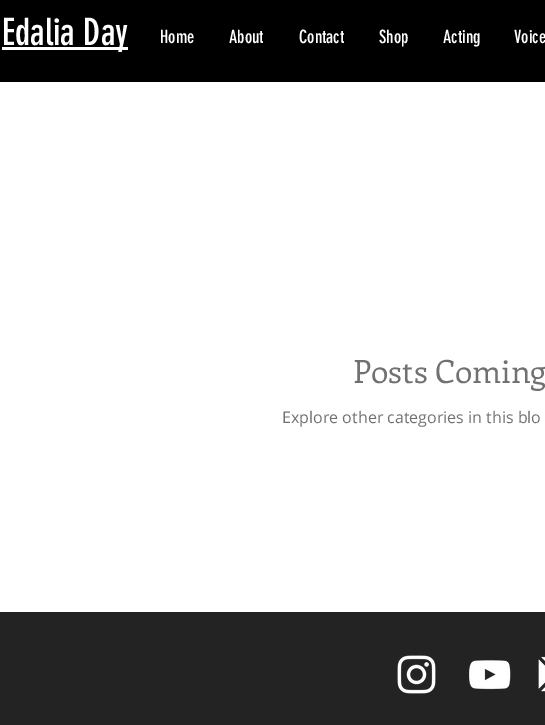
%!PS-Adobe-3.0
%%BoundingBox: 0 0 545 725
%%LanguageLevel: 3
%%Pages: 1
%%EndComments
%%BeginProlog
/setink { 3 { 255 div 3 1 roll } repeat setrgbcolor } def
/usefont { [ exch dup neg 0 0 3 -1 roll 0 0 ] selectfont } def
/drawtext { setink usefont moveto show } def
/fillbox { setink rectfill } def
/drawimage { 5 dict begin { /h /w /y /x /name } { exch def } forall
  gsave x y translate w h scale
  w h 8 [w 0 0 h 0 0] name (r) file false 3 colorimage grestore end } def
%%EndProlog
%%BeginSetup
<< /PageSize [545 725] >> setpagedevice
%%EndSetup
%%Page: 1 1
0 725 translate 1 -1 scale
4 setmiterlimit
0 0 545 725 0 0 0 fillbox
2 47 126 3 255 255 255 fillbox
(Edalia Day) 2 45 /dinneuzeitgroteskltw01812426-Regular 37 255 255 255 drawtext
(Home) 160 43 /dinneuzeitgroteskltw01812426-Regular 18 255 255 255 drawtext
(About) 229 43 /dinneuzeitgroteskltw01812426-Regular 18 255 255 255 drawtext
(Contact) 299 43 /dinneuzeitgroteskltw01812426-Regular 18 255 255 255 drawtext
(Shop) 379 43 /dinneuzeitgroteskltw01812426-Regular 18 255 255 255 drawtext
(Acting) 443 43 /dinneuzeitgroteskltw01812426-Regular 18 255 255 255 drawtext
(Voice) 514 43 /dinneuzeitgroteskltw01812426-Regular 18 255 255 255 drawtext
0 82 545 530 255 255 255 fillbox
(Posts Coming) 353 383 /Enriqueta-Regular 32 113 113 113 drawtext
(Explore other categories in this blo) 282 423 /OpenSans-Regular 16 113 113 113 drawtext
0 612 545 113 36 35 35 fillbox
(assets/img1.rgb) 397 655 39 39 drawimage
(assets/img2.rgb) 469 660 42 30 drawimage
(assets/img3.rgb) 538 656 7 36 drawimage
showpage
%%EOF
